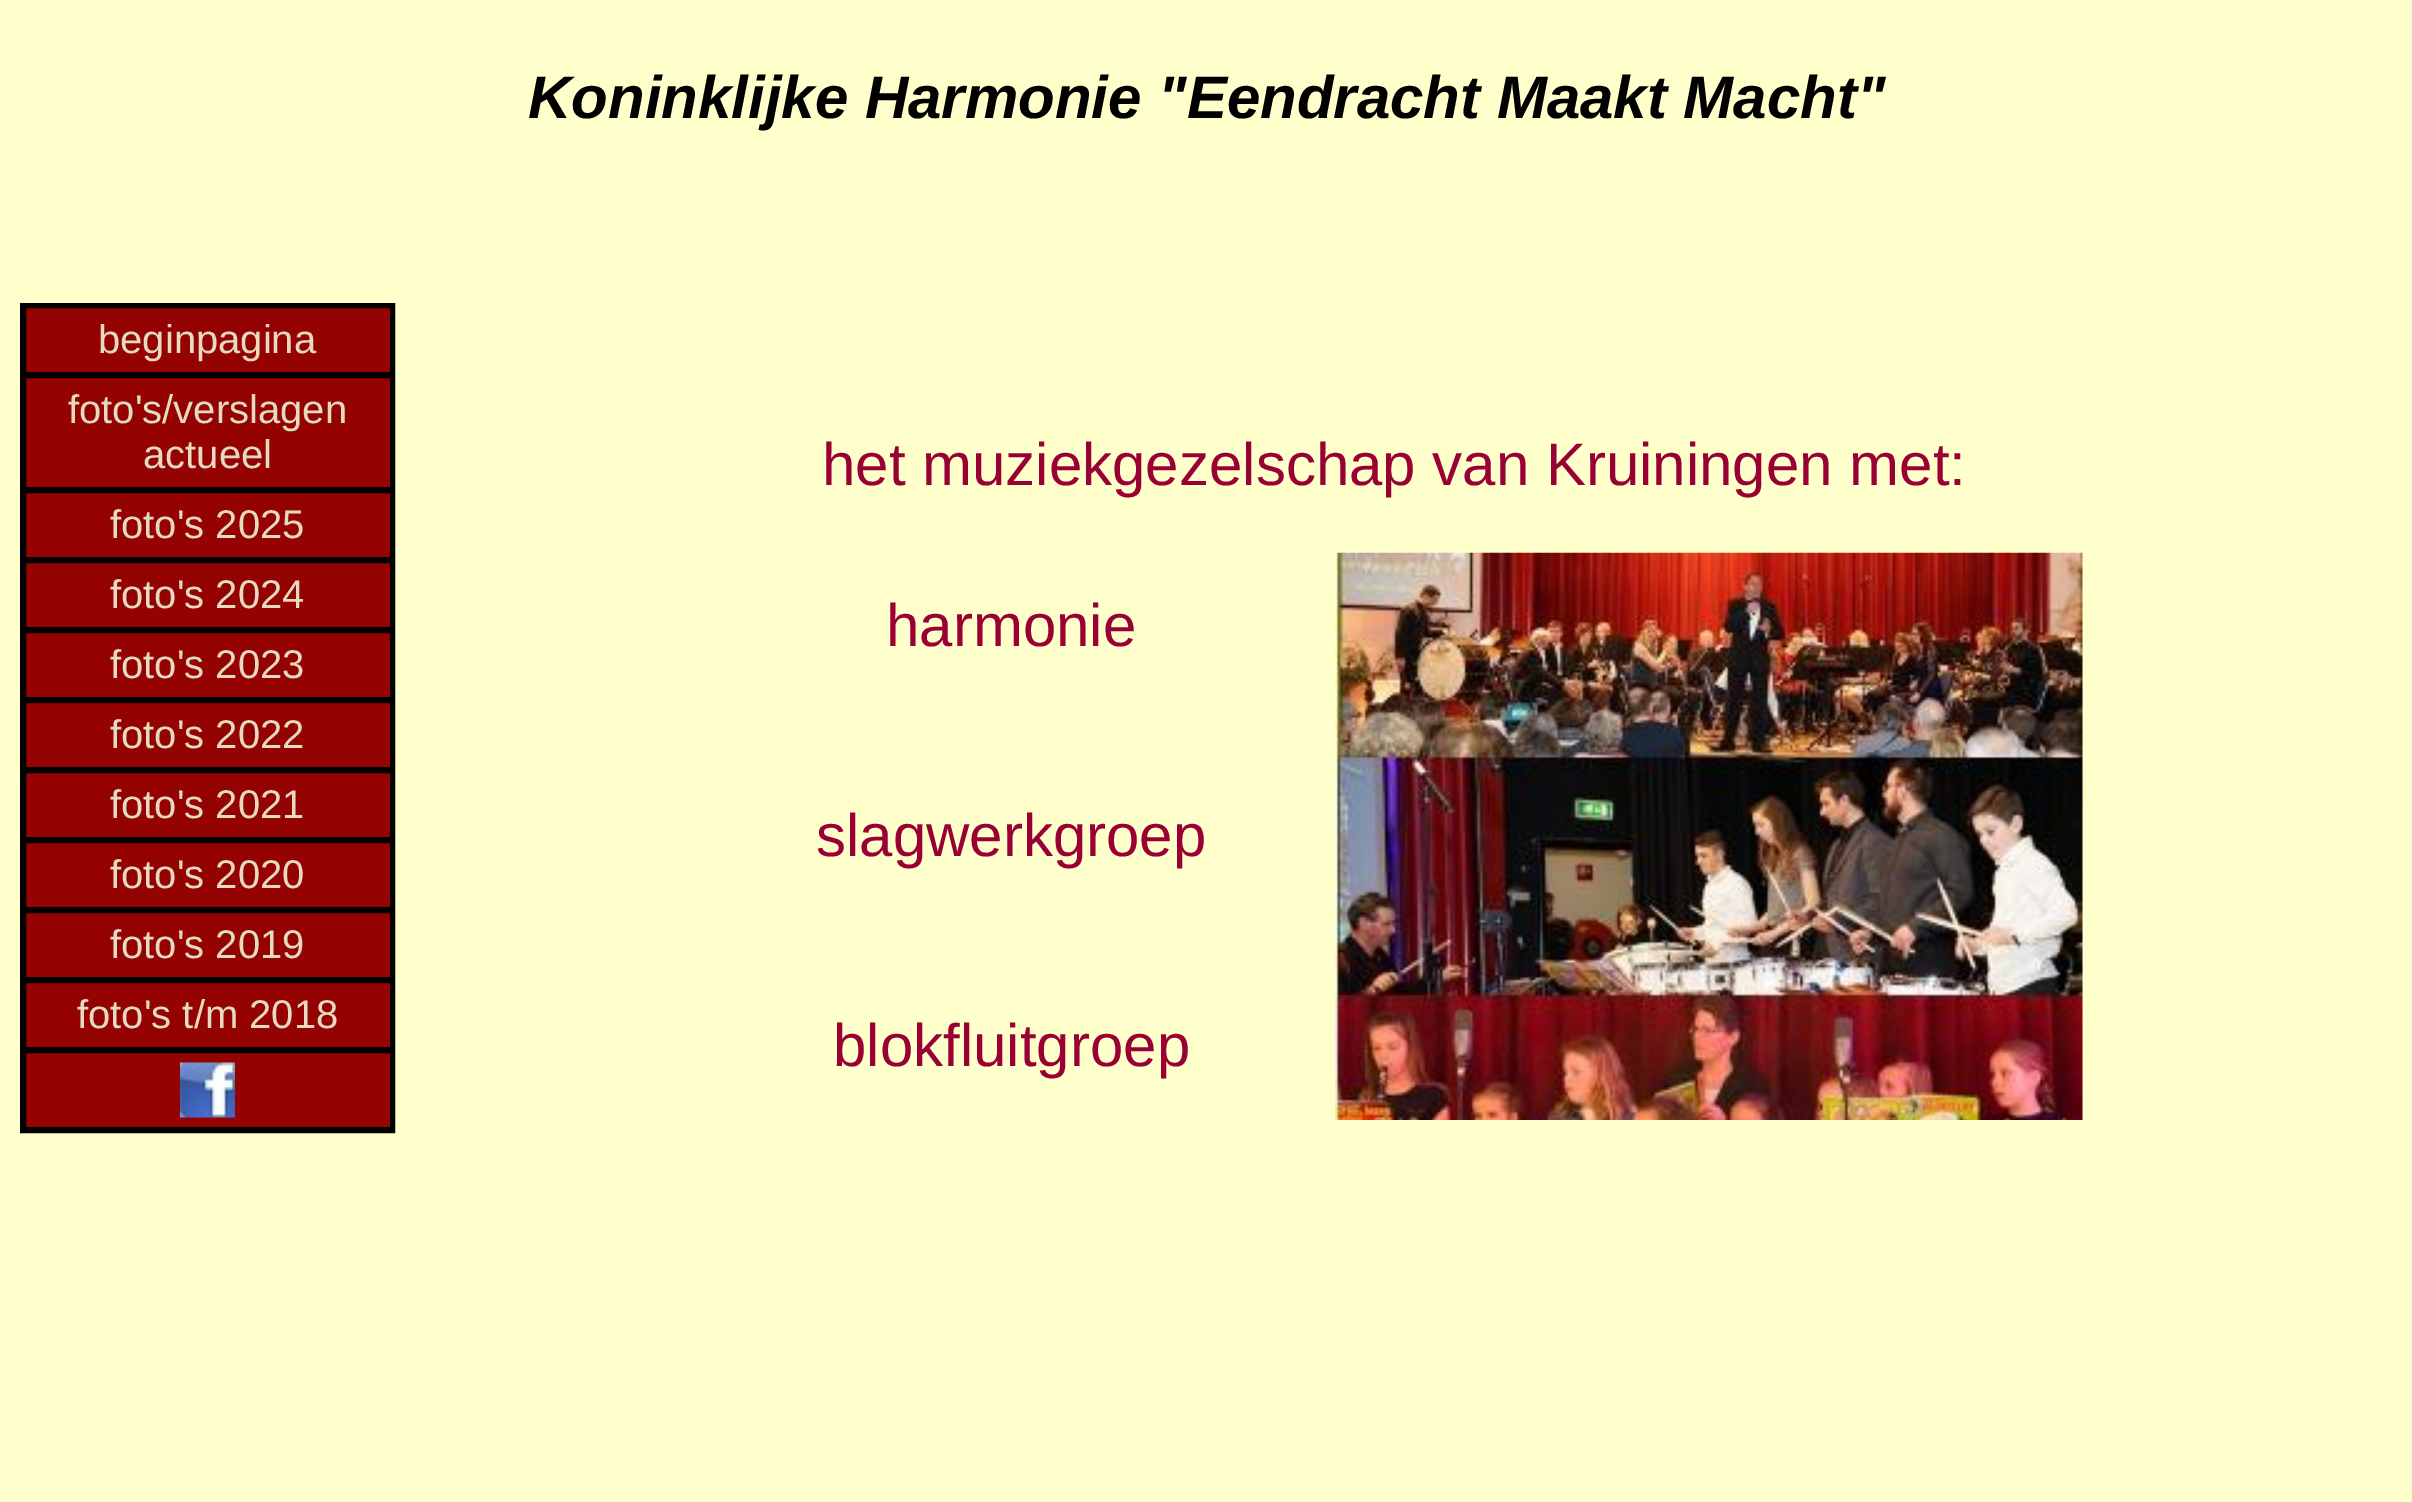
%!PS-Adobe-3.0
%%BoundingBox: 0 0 2412 1502
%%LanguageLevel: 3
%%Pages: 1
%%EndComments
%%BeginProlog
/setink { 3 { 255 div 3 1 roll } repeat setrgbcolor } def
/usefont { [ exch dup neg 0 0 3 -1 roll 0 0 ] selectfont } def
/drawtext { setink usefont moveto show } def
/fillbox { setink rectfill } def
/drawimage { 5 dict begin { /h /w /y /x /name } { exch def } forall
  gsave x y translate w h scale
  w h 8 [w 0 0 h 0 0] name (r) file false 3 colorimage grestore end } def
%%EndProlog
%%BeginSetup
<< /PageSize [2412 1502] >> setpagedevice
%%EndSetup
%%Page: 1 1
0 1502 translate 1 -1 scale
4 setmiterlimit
0 0 2412 1502 255 255 204 fillbox
(Koninklijke Harmonie "Eendracht Maakt Macht") 528 118 /LiberationSans-BoldItalic 60 0 0 0 drawtext
26 308 364 819 148 2 2 fillbox
0 0 0 setink
3 setlinewidth
21.5 304.5 372 827 rectstroke
24.5 306.5 367 67 rectstroke
(beginpagina) 98 353 /LiberationSans-Regular 40 230 219 193 drawtext
0 0 0 setink
24.5 376.5 367 112 rectstroke
(foto's/verslagen) 68 423 /LiberationSans-Regular 40 230 219 193 drawtext
(actueel) 143 468 /LiberationSans-Regular 40 230 219 193 drawtext
0 0 0 setink
24.5 491.5 367 67 rectstroke
(foto's 2025) 110 538 /LiberationSans-Regular 40 230 219 193 drawtext
0 0 0 setink
24.5 561.5 367 67 rectstroke
(foto's 2024) 110 608 /LiberationSans-Regular 40 230 219 193 drawtext
0 0 0 setink
24.5 631.5 367 67 rectstroke
(foto's 2023) 110 678 /LiberationSans-Regular 40 230 219 193 drawtext
0 0 0 setink
24.5 701.5 367 67 rectstroke
(foto's 2022) 110 748 /LiberationSans-Regular 40 230 219 193 drawtext
0 0 0 setink
24.5 771.5 367 67 rectstroke
(foto's 2021) 110 818 /LiberationSans-Regular 40 230 219 193 drawtext
0 0 0 setink
24.5 841.5 367 67 rectstroke
(foto's 2020) 110 888 /LiberationSans-Regular 40 230 219 193 drawtext
0 0 0 setink
24.5 911.5 367 67 rectstroke
(foto's 2019) 110 958 /LiberationSans-Regular 40 230 219 193 drawtext
0 0 0 setink
24.5 981.5 367 67 rectstroke
(foto's t/m 2018) 77 1028 /LiberationSans-Regular 40 230 219 193 drawtext
0 0 0 setink
24.5 1051.5 367 77 rectstroke
(assets/img1.rgb) 180 1062 55 56 drawimage
(het muziekgezelschap van Kruiningen met:) 822 485 /LiberationSans-Regular 60 153 0 51 drawtext
(harmonie) 886 646 /LiberationSans-Regular 60 153 0 51 drawtext
(slagwerkgroep) 816 856 /LiberationSans-Regular 60 153 0 51 drawtext
(blokfluitgroep) 833 1066 /LiberationSans-Regular 60 153 0 51 drawtext
(assets/img2.rgb) 1335 552 748 568 drawimage
showpage
%%EOF
